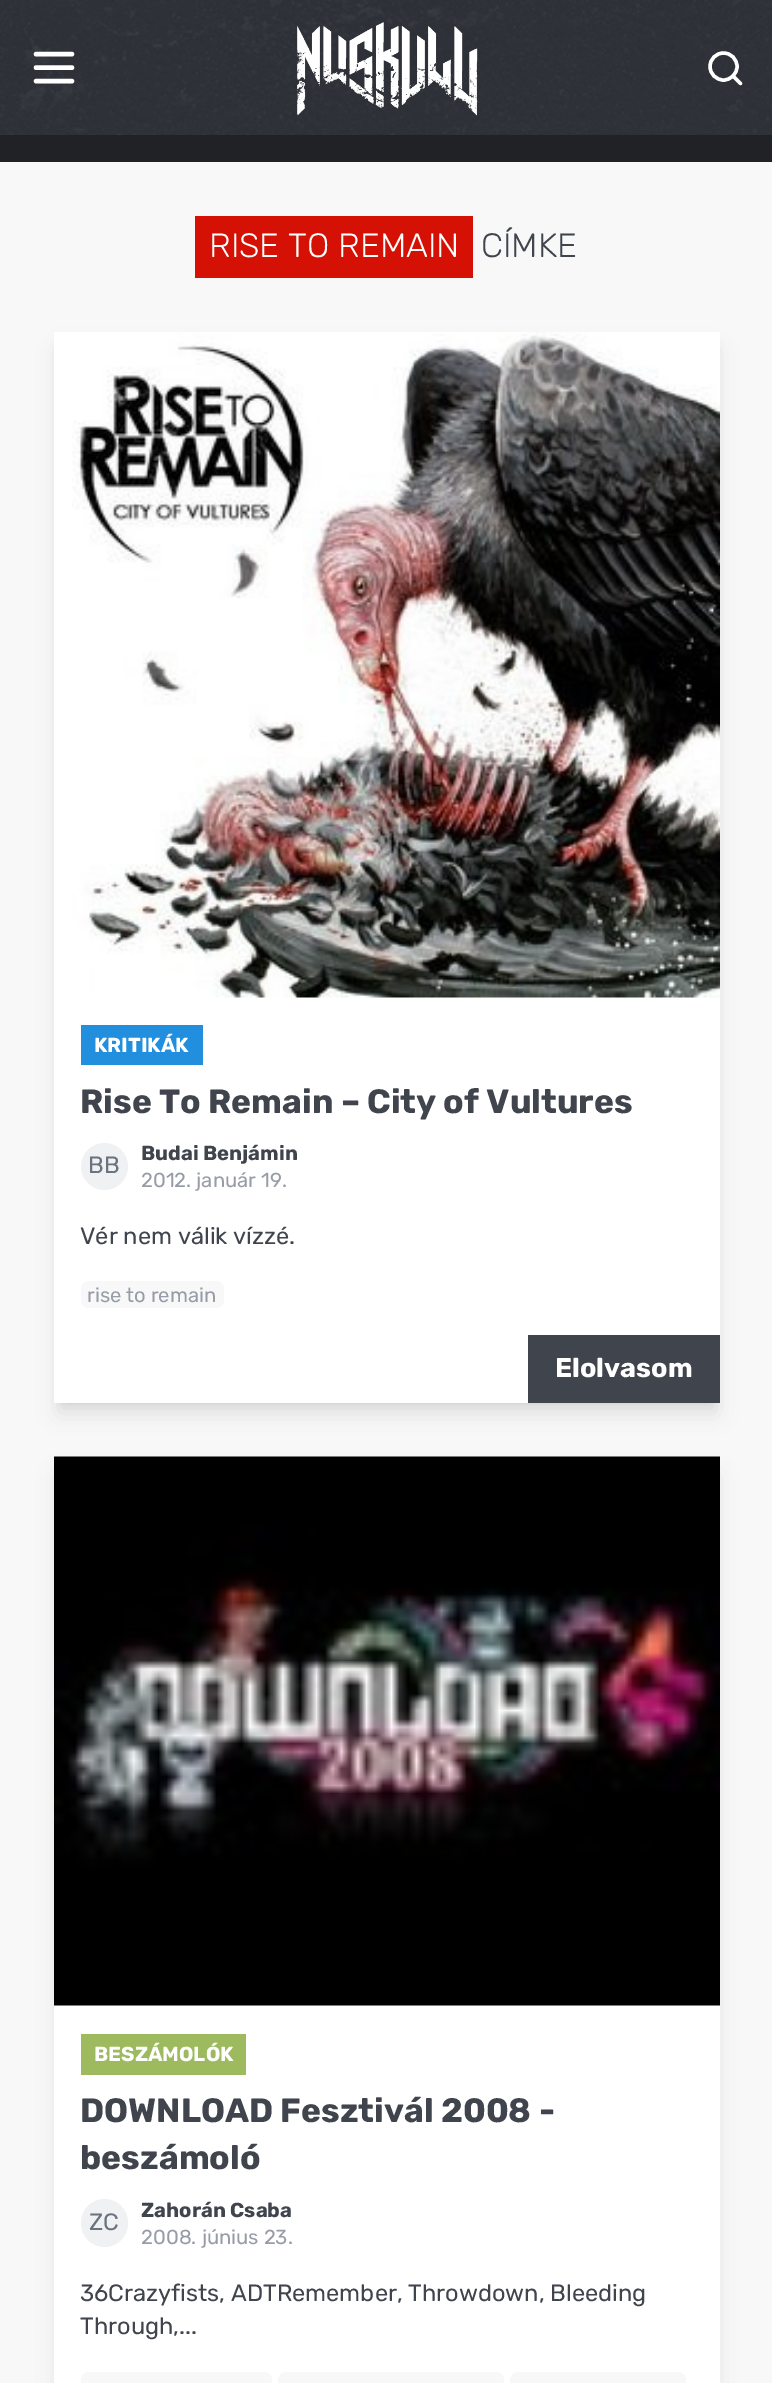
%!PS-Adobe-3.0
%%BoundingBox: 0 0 772 2383
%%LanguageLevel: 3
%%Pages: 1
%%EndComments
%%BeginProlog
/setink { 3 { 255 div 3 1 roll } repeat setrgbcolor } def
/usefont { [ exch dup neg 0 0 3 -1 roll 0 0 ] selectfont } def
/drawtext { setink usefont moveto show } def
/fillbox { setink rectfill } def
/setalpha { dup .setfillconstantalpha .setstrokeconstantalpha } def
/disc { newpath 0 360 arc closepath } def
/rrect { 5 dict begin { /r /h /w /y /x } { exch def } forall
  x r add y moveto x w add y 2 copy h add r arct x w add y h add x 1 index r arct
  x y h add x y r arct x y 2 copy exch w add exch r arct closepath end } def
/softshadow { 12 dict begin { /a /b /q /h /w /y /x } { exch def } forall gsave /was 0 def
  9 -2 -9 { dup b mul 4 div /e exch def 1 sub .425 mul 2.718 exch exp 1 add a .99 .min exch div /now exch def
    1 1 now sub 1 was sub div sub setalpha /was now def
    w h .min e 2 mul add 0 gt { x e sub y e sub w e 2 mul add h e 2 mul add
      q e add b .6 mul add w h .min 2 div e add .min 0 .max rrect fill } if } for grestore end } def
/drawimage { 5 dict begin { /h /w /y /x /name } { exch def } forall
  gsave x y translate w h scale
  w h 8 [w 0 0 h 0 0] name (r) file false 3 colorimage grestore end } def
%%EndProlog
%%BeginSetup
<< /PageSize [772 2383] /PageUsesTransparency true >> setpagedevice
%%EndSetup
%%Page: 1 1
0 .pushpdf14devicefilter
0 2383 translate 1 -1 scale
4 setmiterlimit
0 0 772 2383 248 248 249 fillbox
0 0 772 135 48 51 58 fillbox
(assets/img1.rgb) 0 0 772 135 drawimage
255 255 255 setink
4.5 setlinewidth
1 setlinecap
1 setlinejoin
36 54 moveto 72 54 lineto 36 67.5 moveto 72 67.5 lineto 36 81 moveto 72 81 lineto stroke
(assets/img2.rgb) 297 22 181 94 drawimage
3.4 setlinewidth
0 setlinecap
0 setlinejoin
723.5 66.5 13.5 disc stroke
1 setlinecap
1 setlinejoin
740.5 83.5 moveto 733 76 lineto stroke
0 135 772 27 32 34 38 fillbox
195 216 278 62 212 17 4 fillbox
(RISE TO REMAIN) 209 257 /Rubik-Light 33.75 255 255 255 drawtext
(CÍMKE) 481 257 /Rubik-Light 33.75 64 68 77 drawtext
0 0 0 setink
60 344 654 1059 0 4.5 0.1 softshadow
59 351 657 1062 0 11 0.1 softshadow
54 332 666 1071 255 255 255 fillbox
(assets/img3.rgb) 72 332 648 666 drawimage
81 1025 122 40 33 142 222 fillbox
(KRITIKÁK) 94 1052 /Rubik-Bold 20.25 255 255 255 drawtext
(Rise To Remain – City of Vultures) 80 1113 /Rubik-Bold 33.75 64 68 77 drawtext
240 241 242 setink
104.5 1166.5 23.5 disc fill
(BB) 88 1173 /Rubik-Regular 23.6 107 114 128 drawtext
(Budai Benjámin) 141 1160 /Rubik-Bold 20.25 64 68 77 drawtext
(2012. január 19.) 141 1187 /Rubik-Regular 20.25 151 156 166 drawtext
(Vér nem válik vízzé.) 80 1244 /Rubik-Regular 23.6 64 68 77 drawtext
248 248 249 setink
81 1281 143 27 8 rrect fill
(rise to remain) 87 1302 /Rubik-Regular 20.25 151 156 166 drawtext
528 1335 192 68 64 68 77 fillbox
(Elolvasom) 555 1377 /Rubik-Bold 27 255 255 255 drawtext
0 0 0 setink
59 1476 657 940 0 11 0.1 softshadow
54 2005 666 378 255 255 255 fillbox
(assets/img4.rgb) 54 1456 666 550 drawimage
81 2034 165 41 157 186 94 fillbox
(BESZÁMOLÓK) 94 2061 /Rubik-Bold 20.25 255 255 255 drawtext
(DOWNLOAD Fesztivál 2008 -) 80 2122 /Rubik-Bold 33.75 64 68 77 drawtext
(beszámoló) 80 2169 /Rubik-Bold 33.75 64 68 77 drawtext
240 241 242 setink
81 2199 47 48 23.5 rrect fill
(ZC) 89 2230 /Rubik-Regular 23.6 107 114 128 drawtext
(Zahorán Csaba) 141 2217 /Rubik-Bold 20.25 64 68 77 drawtext
(2008. június 23.) 141 2244 /Rubik-Regular 20.25 151 156 166 drawtext
(36Crazyfists, ADTRemember, Throwdown, Bleeding) 80 2301 /Rubik-Regular 23.6 64 68 77 drawtext
(Through,...) 80 2334 /Rubik-Regular 23.6 64 68 77 drawtext
248 248 249 setink
81 2372 191 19 8 rrect fill
278 2372 226 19 8 rrect fill
510 2372 176 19 8 rrect fill
.poppdf14devicefilter showpage
%%EOF
